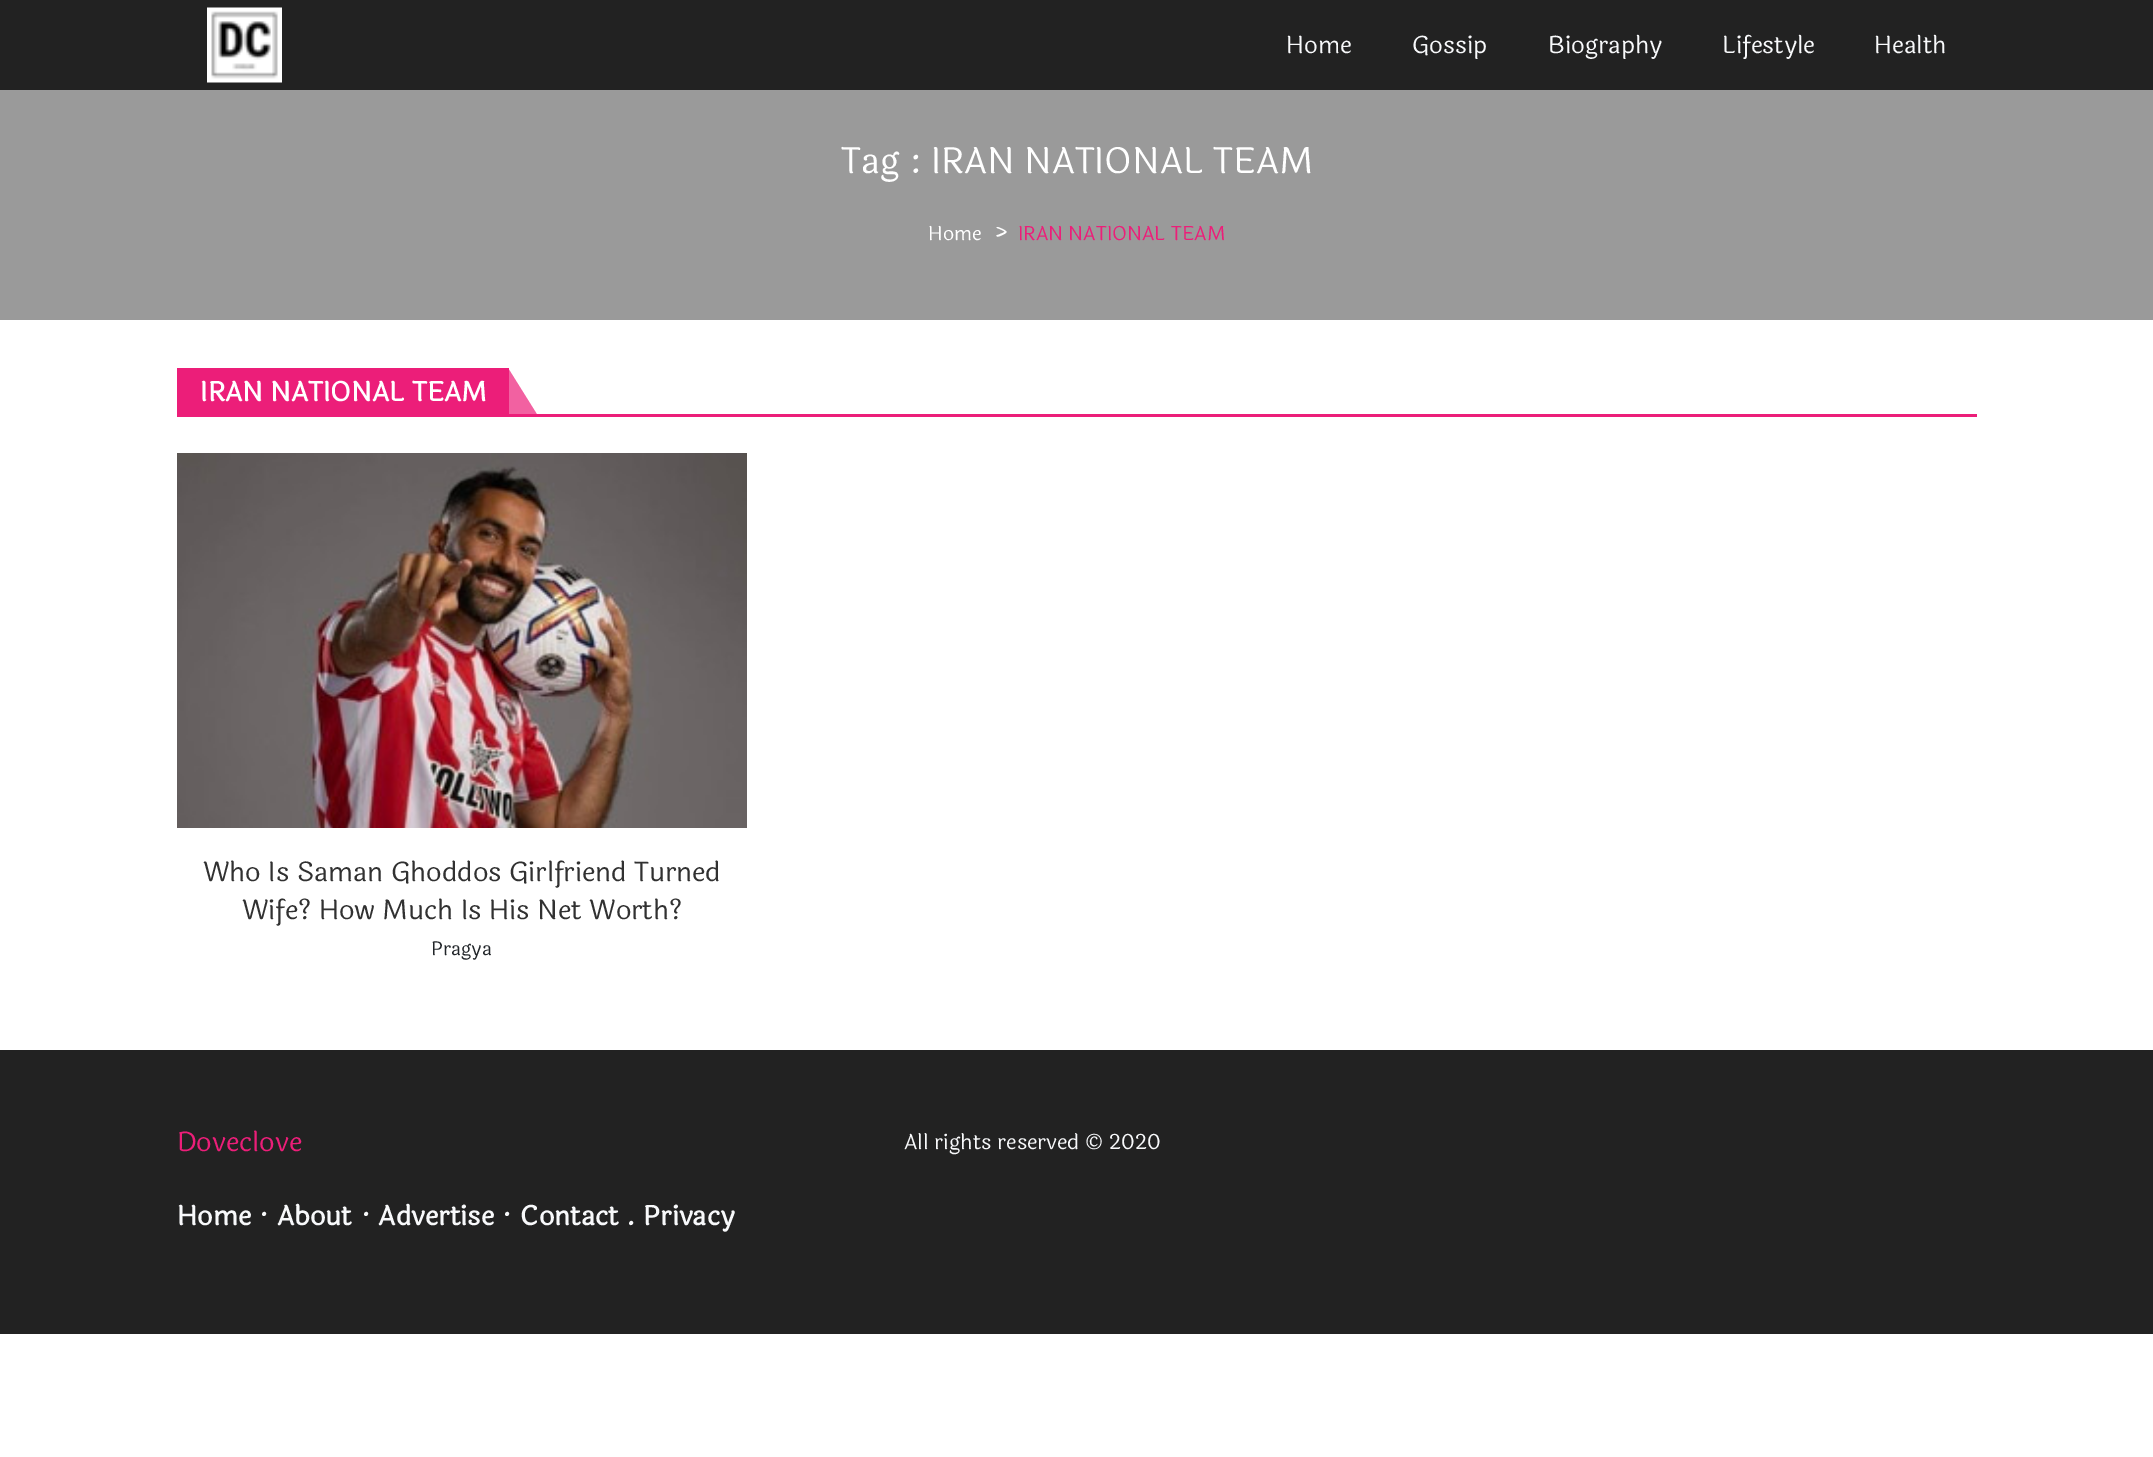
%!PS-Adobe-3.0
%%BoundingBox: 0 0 2153 1457
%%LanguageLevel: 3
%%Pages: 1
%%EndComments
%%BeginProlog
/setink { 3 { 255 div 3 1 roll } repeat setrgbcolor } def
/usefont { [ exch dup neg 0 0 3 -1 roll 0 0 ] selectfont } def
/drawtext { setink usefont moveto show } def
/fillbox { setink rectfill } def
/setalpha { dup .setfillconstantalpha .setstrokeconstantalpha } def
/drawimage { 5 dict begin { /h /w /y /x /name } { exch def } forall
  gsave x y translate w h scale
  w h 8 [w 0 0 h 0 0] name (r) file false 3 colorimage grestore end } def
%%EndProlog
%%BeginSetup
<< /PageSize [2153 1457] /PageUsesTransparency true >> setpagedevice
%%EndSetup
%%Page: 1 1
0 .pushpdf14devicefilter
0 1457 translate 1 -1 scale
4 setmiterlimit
0 0 2153 1457 255 255 255 fillbox
0 0 2153 90 34 34 34 fillbox
(assets/img1.rgb) 207 7 75 76 drawimage
(Home) 1286 53 /Laila-Regular 24 248 249 251 drawtext
(Gossip) 1412 53 /Laila-Regular 24 248 249 251 drawtext
(Biography) 1548 53 /Laila-Regular 24 248 249 251 drawtext
(Lifestyle) 1722 53 /Laila-Regular 24 248 249 251 drawtext
(Health) 1874 53 /Laila-Regular 24 248 249 251 drawtext
0 90 2153 230 154 154 154 fillbox
(Tag : IRAN NATIONAL TEAM) 841 173 /Laila-Regular 36 255 255 255 drawtext
(Home) 928 240 /Laila-Regular 19.5 255 255 255 drawtext
(>) 994 240 /Laila-Bold 19.5 255 255 255 drawtext
(IRAN NATIONAL TEAM) 1018 240 /Laila-Regular 19.5 236 30 121 drawtext
177 368 332 46 236 30 121 fillbox
0.7 setalpha
538 416 moveto 508 416 lineto 508 368 lineto closepath fill
1 setalpha
(IRAN NATIONAL TEAM) 200 401 /Laila-Bold 27 255 255 255 drawtext
177 414 1800 3 236 30 121 fillbox
(assets/img2.rgb) 177 453 570 375 drawimage
(Who Is Saman Ghoddos Girlfriend Turned) 203 881 /Laila-Regular 27 49 49 49 drawtext
(Wife? How Much Is His Net Worth?) 242 919 /Laila-Regular 27 49 49 49 drawtext
(Pragya) 431 955 /Laila-Regular 19 33 37 41 drawtext
0 1050 2153 284 34 34 34 fillbox
(Doveclove) 177 1151 /Laila-Regular 27 236 30 121 drawtext
(Home · About · Advertise · Contact . Privacy) 177 1225 /Laila-Bold 27 248 249 251 drawtext
(All rights reserved © 2020) 904 1149 /Laila-Regular 21 248 249 251 drawtext
.poppdf14devicefilter showpage
%%EOF
